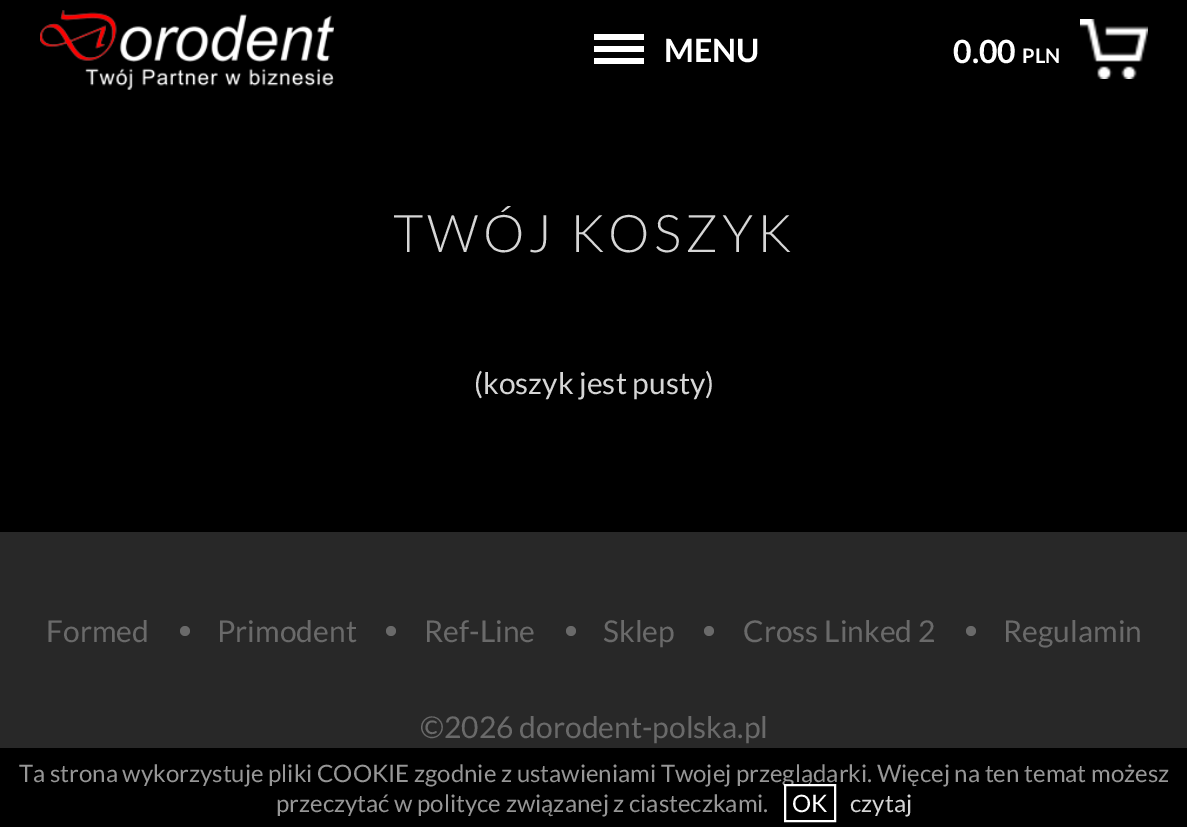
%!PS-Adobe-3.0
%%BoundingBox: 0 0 1187 827
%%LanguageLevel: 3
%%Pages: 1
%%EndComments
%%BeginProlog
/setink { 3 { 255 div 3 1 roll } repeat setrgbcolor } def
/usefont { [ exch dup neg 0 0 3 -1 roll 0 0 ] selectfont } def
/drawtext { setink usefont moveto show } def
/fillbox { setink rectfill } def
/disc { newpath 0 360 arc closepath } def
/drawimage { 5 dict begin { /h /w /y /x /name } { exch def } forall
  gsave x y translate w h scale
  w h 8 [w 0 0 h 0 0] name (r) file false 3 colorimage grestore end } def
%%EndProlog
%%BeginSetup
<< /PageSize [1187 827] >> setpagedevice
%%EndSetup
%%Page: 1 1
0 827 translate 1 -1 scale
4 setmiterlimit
0 0 1187 827 0 0 0 fillbox
(assets/img1.rgb) 40 10 294 80 drawimage
594 34 50 6 255 255 255 fillbox
594 58 50 6 255 255 255 fillbox
594 46 50 6 255 255 255 fillbox
(MENU) 664 62 /Lato-Bold 32 255 255 255 drawtext
(0.00) 953 63 /Lato-Bold 32 255 255 255 drawtext
(PLN) 1022 63 /Lato-Bold 20 255 255 255 drawtext
(assets/img2.rgb) 1080 19 68 60 drawimage
/Lato-Light 52 usefont
214 214 214 setink
393 252 moveto 4 0 (TWÓJ KOSZYK) ashow
(\(koszyk jest pusty\)) 474 394 /Lato-Regular 30 214 214 214 drawtext
0 532 1187 216 40 40 40 fillbox
(Formed) 46 642 /Lato-Regular 30 106 106 106 drawtext
185 631 5 disc fill
(Primodent) 217 642 /Lato-Regular 30 106 106 106 drawtext
391 631 5 disc fill
(Ref-Line) 424 642 /Lato-Regular 30 106 106 106 drawtext
571 631 5 disc fill
(Sklep) 603 642 /Lato-Regular 30 106 106 106 drawtext
709 631 5 disc fill
(Cross Linked 2) 743 642 /Lato-Regular 30 106 106 106 drawtext
971 631 5 disc fill
(Regulamin) 1003 642 /Lato-Regular 30 106 106 106 drawtext
(©2026 dorodent-polska.pl) 420 738 /Lato-Regular 30 106 106 106 drawtext
(Ta strona wykorzystuje pliki COOKIE zgodnie z ustawieniami Twojej przeglądarki. Więcej na ten temat możesz) 19 782 /Lato-Regular 24 150 150 150 drawtext
(przeczytać w polityce związanej z ciasteczkami.) 276 812 /Lato-Regular 24 150 150 150 drawtext
786 786 25 1 0 0 0 fillbox
255 255 255 setink
2 setlinewidth
785 785 50 36 rectstroke
(OK) 792 812 /Lato-Regular 24 255 255 255 drawtext
(czytaj) 850 812 /Lato-Regular 24 214 214 214 drawtext
showpage
%%EOF
